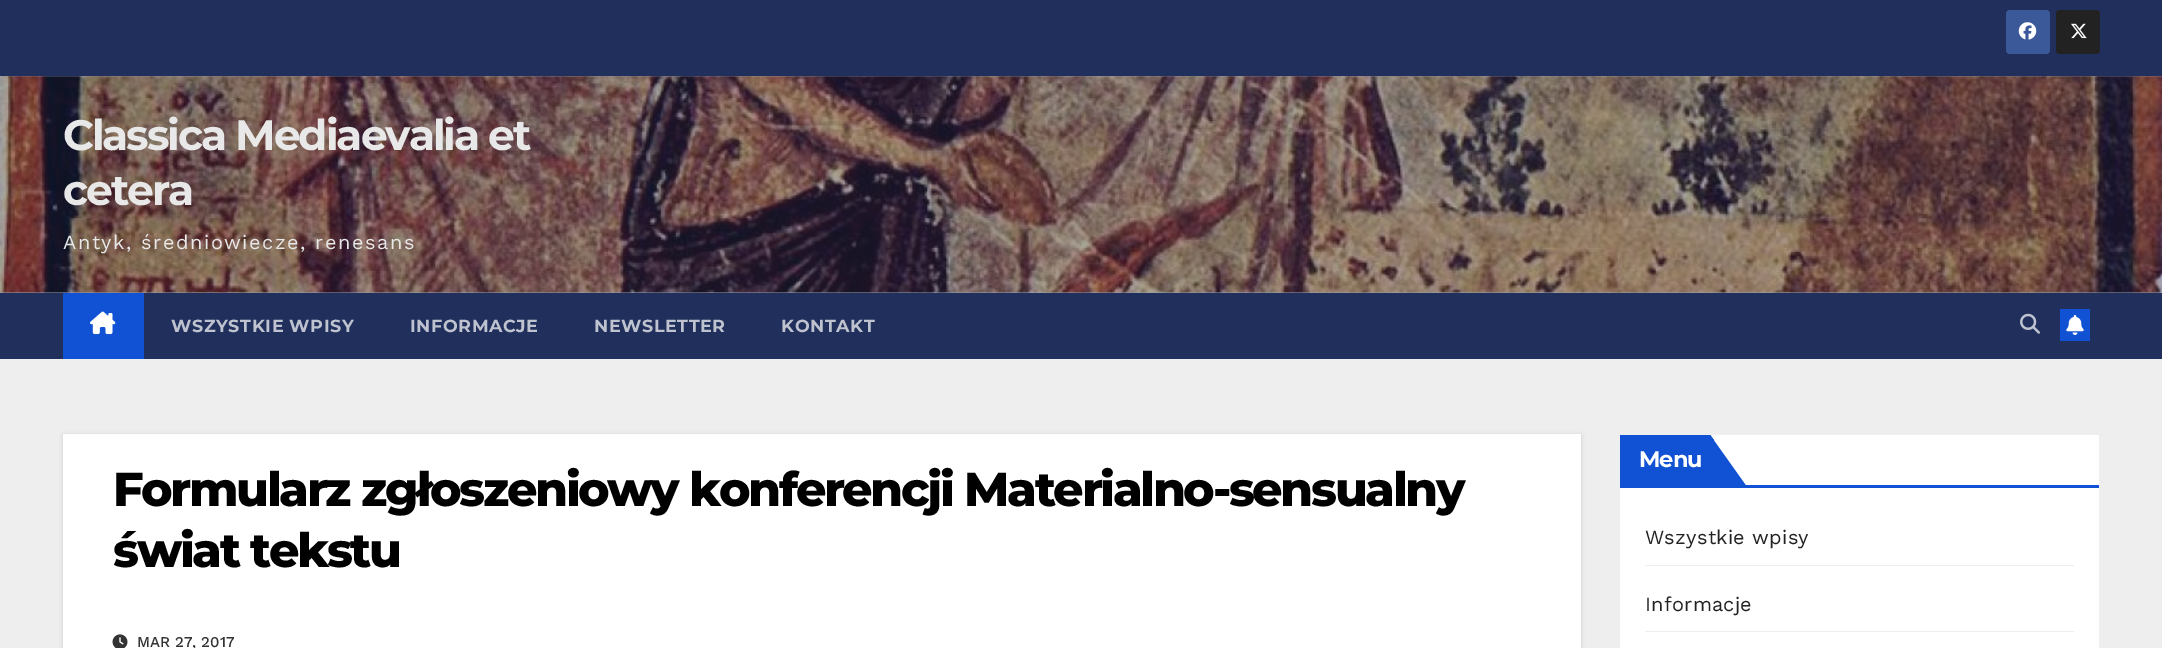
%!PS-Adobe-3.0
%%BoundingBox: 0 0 2162 648
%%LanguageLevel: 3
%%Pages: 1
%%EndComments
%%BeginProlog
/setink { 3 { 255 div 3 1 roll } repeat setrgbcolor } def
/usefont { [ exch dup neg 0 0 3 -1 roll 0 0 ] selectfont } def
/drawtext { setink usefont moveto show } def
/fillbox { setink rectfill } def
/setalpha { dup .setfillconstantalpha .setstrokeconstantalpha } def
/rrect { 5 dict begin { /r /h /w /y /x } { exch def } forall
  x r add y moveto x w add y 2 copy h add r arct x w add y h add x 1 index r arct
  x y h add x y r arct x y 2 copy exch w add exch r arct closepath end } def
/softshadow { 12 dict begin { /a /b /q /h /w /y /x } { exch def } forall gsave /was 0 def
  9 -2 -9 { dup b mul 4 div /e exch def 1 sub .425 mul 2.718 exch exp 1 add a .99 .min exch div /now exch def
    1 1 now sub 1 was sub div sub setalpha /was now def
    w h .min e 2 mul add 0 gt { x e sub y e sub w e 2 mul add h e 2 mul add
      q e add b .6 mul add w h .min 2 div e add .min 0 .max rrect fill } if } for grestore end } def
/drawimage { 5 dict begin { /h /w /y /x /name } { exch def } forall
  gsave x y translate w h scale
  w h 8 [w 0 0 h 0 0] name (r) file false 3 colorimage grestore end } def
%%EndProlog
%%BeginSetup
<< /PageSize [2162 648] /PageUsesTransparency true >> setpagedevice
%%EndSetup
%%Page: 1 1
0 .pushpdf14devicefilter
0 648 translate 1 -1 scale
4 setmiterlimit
0 0 2162 648 238 238 238 fillbox
0 76 2162 217 156 162 179 fillbox
0 0 2162 76 32 47 91 fillbox
59 89 152 setink
2006 10 44 44 4 rrect fill
(assets/img1.rgb) 2018 22 19 18 drawimage
34 34 34 setink
2056 10 44 44 4 rrect fill
(assets/img2.rgb) 2071 23 16 16 drawimage
(assets/img3.rgb) 0 76 2162 217 drawimage
/Montserrat-Bold 42.5 usefont
232 232 232 setink
63 150 moveto -2.1 0 (Classica Mediaevalia et) ashow
63 205 moveto -2.1 0 (cetera) ashow
/WorkSans-Regular 20 usefont
63 249 moveto 1.5 0 (Antyk, średniowiecze, renesans) ashow
0 293 2162 66 32 47 91 fillbox
63 293 81 66 17 81 211 fillbox
(assets/img4.rgb) 90 311 26 24 drawimage
/Montserrat-Bold 17.5 usefont
190 195 207 setink
171 332 moveto 0.6 0 (WSZYSTKIE WPISY) ashow
410 332 moveto 0.6 0 (INFORMACJE) ashow
594 332 moveto 0.6 0 (NEWSLETTER) ashow
781 332 moveto 0.6 0 (KONTAKT) ashow
(assets/img5.rgb) 2020 313 20 21 drawimage
2060 309 30 32 17 81 211 fillbox
(assets/img6.rgb) 2066 315 18 20 drawimage
0 0 0 setink
63 435 1518 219 0 2 0.15 softshadow
63 434 1518 214 255 255 255 fillbox
/Montserrat-ExtraBold 47.5 usefont
0 0 0 setink
113 506 moveto -2.38 0 (Formularz zgłoszeniowy konferencji Materialno-sensualny) ashow
113 567 moveto -2.38 0 (świat tekstu) ashow
(assets/img7.rgb) 112 634 16 14 drawimage
(MAR 27, 2017) 137 647 /WorkSans-Medium 15 51 51 51 drawtext
1620 435 479 213 255 255 255 fillbox
1620 485 479 3 17 81 211 fillbox
1620 435 91 50 17 81 211 fillbox
/Montserrat-Bold 22.5 usefont
255 255 255 setink
1639 467 moveto -1 0 (Menu) ashow
17 81 211 setink
1710 435 moveto 1710 487 lineto 1747 487 lineto closepath fill
1710 435 moveto 1710 487 lineto 1711 487 lineto 1714 484 lineto 1714 440 lineto closepath fill
1645 565 429 1 238 238 238 fillbox
/WorkSans-Regular 20 usefont
34 34 34 setink
1645 544 moveto 0.25 0 (Wszystkie wpisy) ashow
1645 631 429 1 238 238 238 fillbox
34 34 34 setink
1645 611 moveto 0.25 0 (Informacje) ashow
.poppdf14devicefilter showpage
%%EOF
